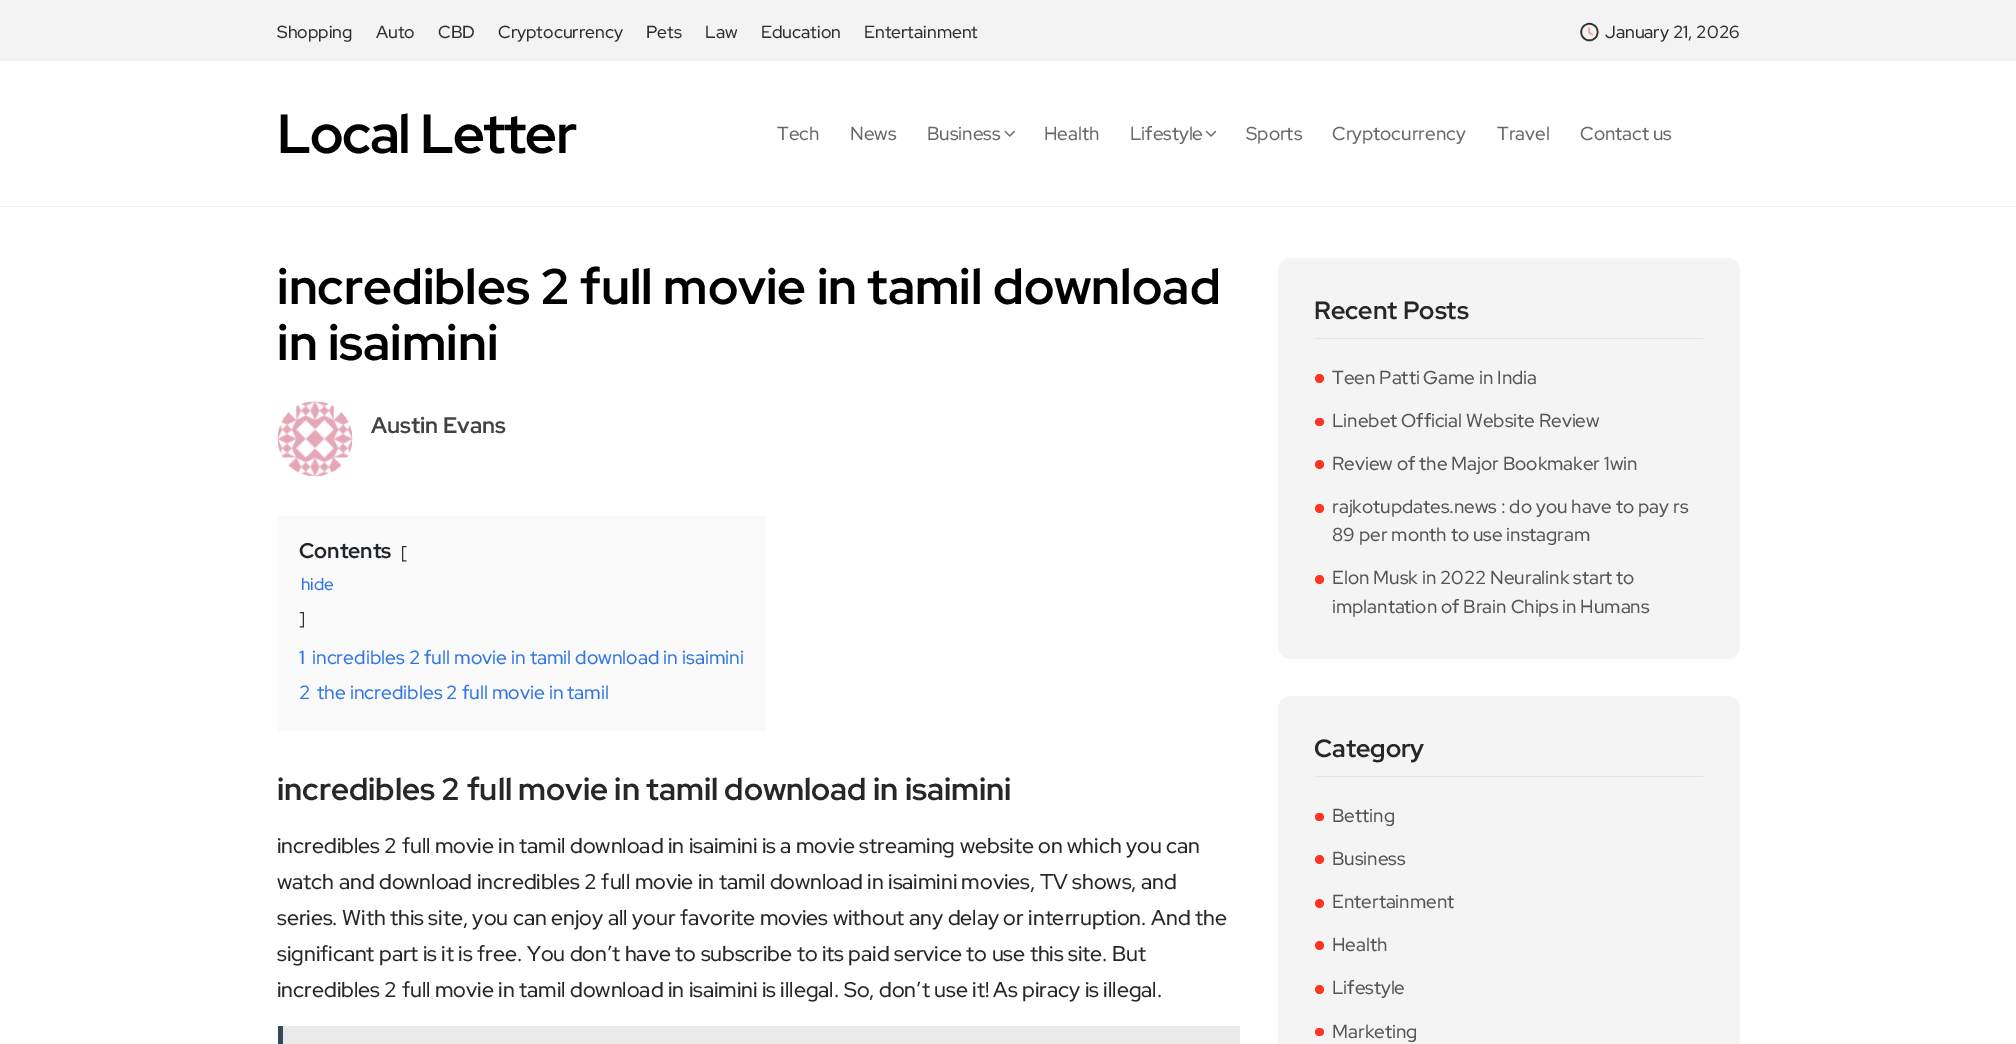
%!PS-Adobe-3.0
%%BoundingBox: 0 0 2016 1044
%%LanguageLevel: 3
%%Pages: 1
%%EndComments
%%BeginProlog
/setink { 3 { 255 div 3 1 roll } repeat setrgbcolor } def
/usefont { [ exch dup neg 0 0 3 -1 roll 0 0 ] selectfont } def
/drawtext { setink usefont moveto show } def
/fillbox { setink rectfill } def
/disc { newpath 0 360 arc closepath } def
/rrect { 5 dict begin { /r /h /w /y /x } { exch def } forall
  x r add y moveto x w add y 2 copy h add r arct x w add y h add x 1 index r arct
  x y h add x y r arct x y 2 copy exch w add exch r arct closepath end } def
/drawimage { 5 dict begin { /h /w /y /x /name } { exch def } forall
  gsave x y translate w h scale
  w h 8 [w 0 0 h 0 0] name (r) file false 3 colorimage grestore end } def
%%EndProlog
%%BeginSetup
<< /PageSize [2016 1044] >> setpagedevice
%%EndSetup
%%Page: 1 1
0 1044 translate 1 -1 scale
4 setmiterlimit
0 0 2016 1044 255 255 255 fillbox
0 206 2016 1 239 239 239 fillbox
0 0 2016 61 243 243 243 fillbox
(Shopping) 277 38 /RedHatDisplay-Medium 17.5 47 47 47 drawtext
(Auto) 376 38 /RedHatDisplay-Medium 17.5 47 47 47 drawtext
(CBD) 438 38 /RedHatDisplay-Medium 17.5 47 47 47 drawtext
(Cryptocurrency) 498 38 /RedHatDisplay-Medium 17.5 47 47 47 drawtext
(Pets) 646 38 /RedHatDisplay-Medium 17.5 47 47 47 drawtext
(Law) 705 38 /RedHatDisplay-Medium 17.5 47 47 47 drawtext
(Education) 761 38 /RedHatDisplay-Medium 17.5 47 47 47 drawtext
(Entertainment) 864 38 /RedHatDisplay-Medium 17.5 47 47 47 drawtext
(assets/img1.rgb) 1580 22 19 20 drawimage
(January 21, 2026) 1605 38 /RedHatDisplay-Medium 17.5 47 47 47 drawtext
/RedHatDisplay-Bold 55 usefont
0 0 0 setink
277 153 moveto -1.25 0 (Local Letter) ashow
(Tech) 777 140 /RedHatDisplay-Medium 18.75 104 104 104 drawtext
(News) 850 140 /RedHatDisplay-Medium 18.75 104 104 104 drawtext
(Business) 927 140 /RedHatDisplay-Medium 18.75 104 104 104 drawtext
(assets/img2.rgb) 1004 130 11 7 drawimage
(Health) 1044 140 /RedHatDisplay-Medium 18.75 104 104 104 drawtext
(Lifestyle) 1130 140 /RedHatDisplay-Medium 18.75 104 104 104 drawtext
(assets/img3.rgb) 1205 130 12 7 drawimage
(Sports) 1246 140 /RedHatDisplay-Medium 18.75 104 104 104 drawtext
(Cryptocurrency) 1332 140 /RedHatDisplay-Medium 18.75 104 104 104 drawtext
(Travel) 1497 140 /RedHatDisplay-Medium 18.75 104 104 104 drawtext
(Contact us) 1580 140 /RedHatDisplay-Medium 18.75 104 104 104 drawtext
(incredibles 2 full movie in tamil download) 277 304 /RedHatDisplay-Bold 50 0 0 0 drawtext
(in isaimini) 277 360 /RedHatDisplay-Bold 50 0 0 0 drawtext
(assets/img4.rgb) 277 401 76 75 drawimage
(Austin Evans) 371 433 /RedHatDisplay-Bold 22.5 66 66 66 drawtext
278 516 488 215 250 250 250 fillbox
(Contents) 299 558 /RedHatDisplay-Bold 21.25 33 37 41 drawtext
([) 401 558 /RedHatDisplay-Medium 17 47 47 47 drawtext
(hide) 301 590 /RedHatDisplay-Medium 17 49 117 228 drawtext
(]) 299 624 /RedHatDisplay-Medium 17 47 47 47 drawtext
(1) 299 664 /RedHatDisplay-Medium 19.1 49 117 228 drawtext
(incredibles 2 full movie in tamil download in isaimini) 312 664 /RedHatDisplay-Medium 19.1 49 117 228 drawtext
(2) 299 699 /RedHatDisplay-Medium 19.1 49 117 228 drawtext
(the incredibles 2 full movie in tamil) 317 699 /RedHatDisplay-Medium 19.1 49 117 228 drawtext
(incredibles 2 full movie in tamil download in isaimini) 277 800 /RedHatDisplay-Bold 31.25 39 39 39 drawtext
(incredibles 2 full movie in tamil download in isaimini is a movie streaming website on which you can) 277 853 /RedHatDisplay-Medium 21.25 39 39 39 drawtext
(watch and download incredibles 2 full movie in tamil download in isaimini movies, TV shows, and) 277 889 /RedHatDisplay-Medium 21.25 39 39 39 drawtext
(series. With this site, you can enjoy all your favorite movies without any delay or interruption. And the) 277 925 /RedHatDisplay-Medium 21.25 39 39 39 drawtext
(significant part is it is free. You don’t have to subscribe to its paid service to use this site. But) 277 961 /RedHatDisplay-Medium 21.25 39 39 39 drawtext
(incredibles 2 full movie in tamil download in isaimini is illegal. So, don’t use it! As piracy is illegal.) 277 997 /RedHatDisplay-Medium 21.25 39 39 39 drawtext
283 1026 957 18 234 234 234 fillbox
278 1026 5 18 52 73 94 fillbox
244 244 244 setink
1278 258 462 401 13 rrect fill
1315 338 388 1 228 228 228 fillbox
(Recent Posts) 1314 319 /RedHatDisplay-Bold 25 39 39 39 drawtext
255 53 36 setink
1319.5 378.5 4.5 disc fill
(Teen Patti Game in India) 1332 384 /RedHatDisplay-Medium 18.75 85 85 85 drawtext
255 53 36 setink
1315 418 9 8 4 rrect fill
(Linebet Official Website Review) 1332 427 /RedHatDisplay-Medium 18.75 85 85 85 drawtext
255 53 36 setink
1319.5 464.5 4.5 disc fill
(Review of the Major Bookmaker 1win) 1332 470 /RedHatDisplay-Medium 18.75 85 85 85 drawtext
255 53 36 setink
1319.5 508.5 4.5 disc fill
(rajkotupdates.news : do you have to pay rs) 1332 513 /RedHatDisplay-Medium 18.75 85 85 85 drawtext
(89 per month to use instagram) 1332 541 /RedHatDisplay-Medium 18.75 85 85 85 drawtext
255 53 36 setink
1319.5 579.5 4.5 disc fill
(Elon Musk in 2022 Neuralink start to) 1332 584 /RedHatDisplay-Medium 18.75 85 85 85 drawtext
(implantation of Brain Chips in Humans) 1332 613 /RedHatDisplay-Medium 18.75 85 85 85 drawtext
244 244 244 setink
1278 696 462 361 13 rrect fill
1315 776 388 1 228 228 228 fillbox
(Category) 1314 757 /RedHatDisplay-Bold 25 39 39 39 drawtext
255 53 36 setink
1315 813 9 8 4 rrect fill
(Betting) 1332 822 /RedHatDisplay-Medium 18.75 85 85 85 drawtext
255 53 36 setink
1319.5 859.5 4.5 disc fill
(Business) 1332 865 /RedHatDisplay-Medium 18.75 85 85 85 drawtext
255 53 36 setink
1319.5 903.5 4.5 disc fill
(Entertainment) 1332 908 /RedHatDisplay-Medium 18.75 85 85 85 drawtext
255 53 36 setink
1319.5 945.5 4.5 disc fill
(Health) 1332 951 /RedHatDisplay-Medium 18.75 85 85 85 drawtext
255 53 36 setink
1319.5 989.5 4.5 disc fill
(Lifestyle) 1332 994 /RedHatDisplay-Medium 18.75 85 85 85 drawtext
255 53 36 setink
1315 1028 9 8 4 rrect fill
(Marketing) 1332 1038 /RedHatDisplay-Medium 18.75 85 85 85 drawtext
showpage
%%EOF
